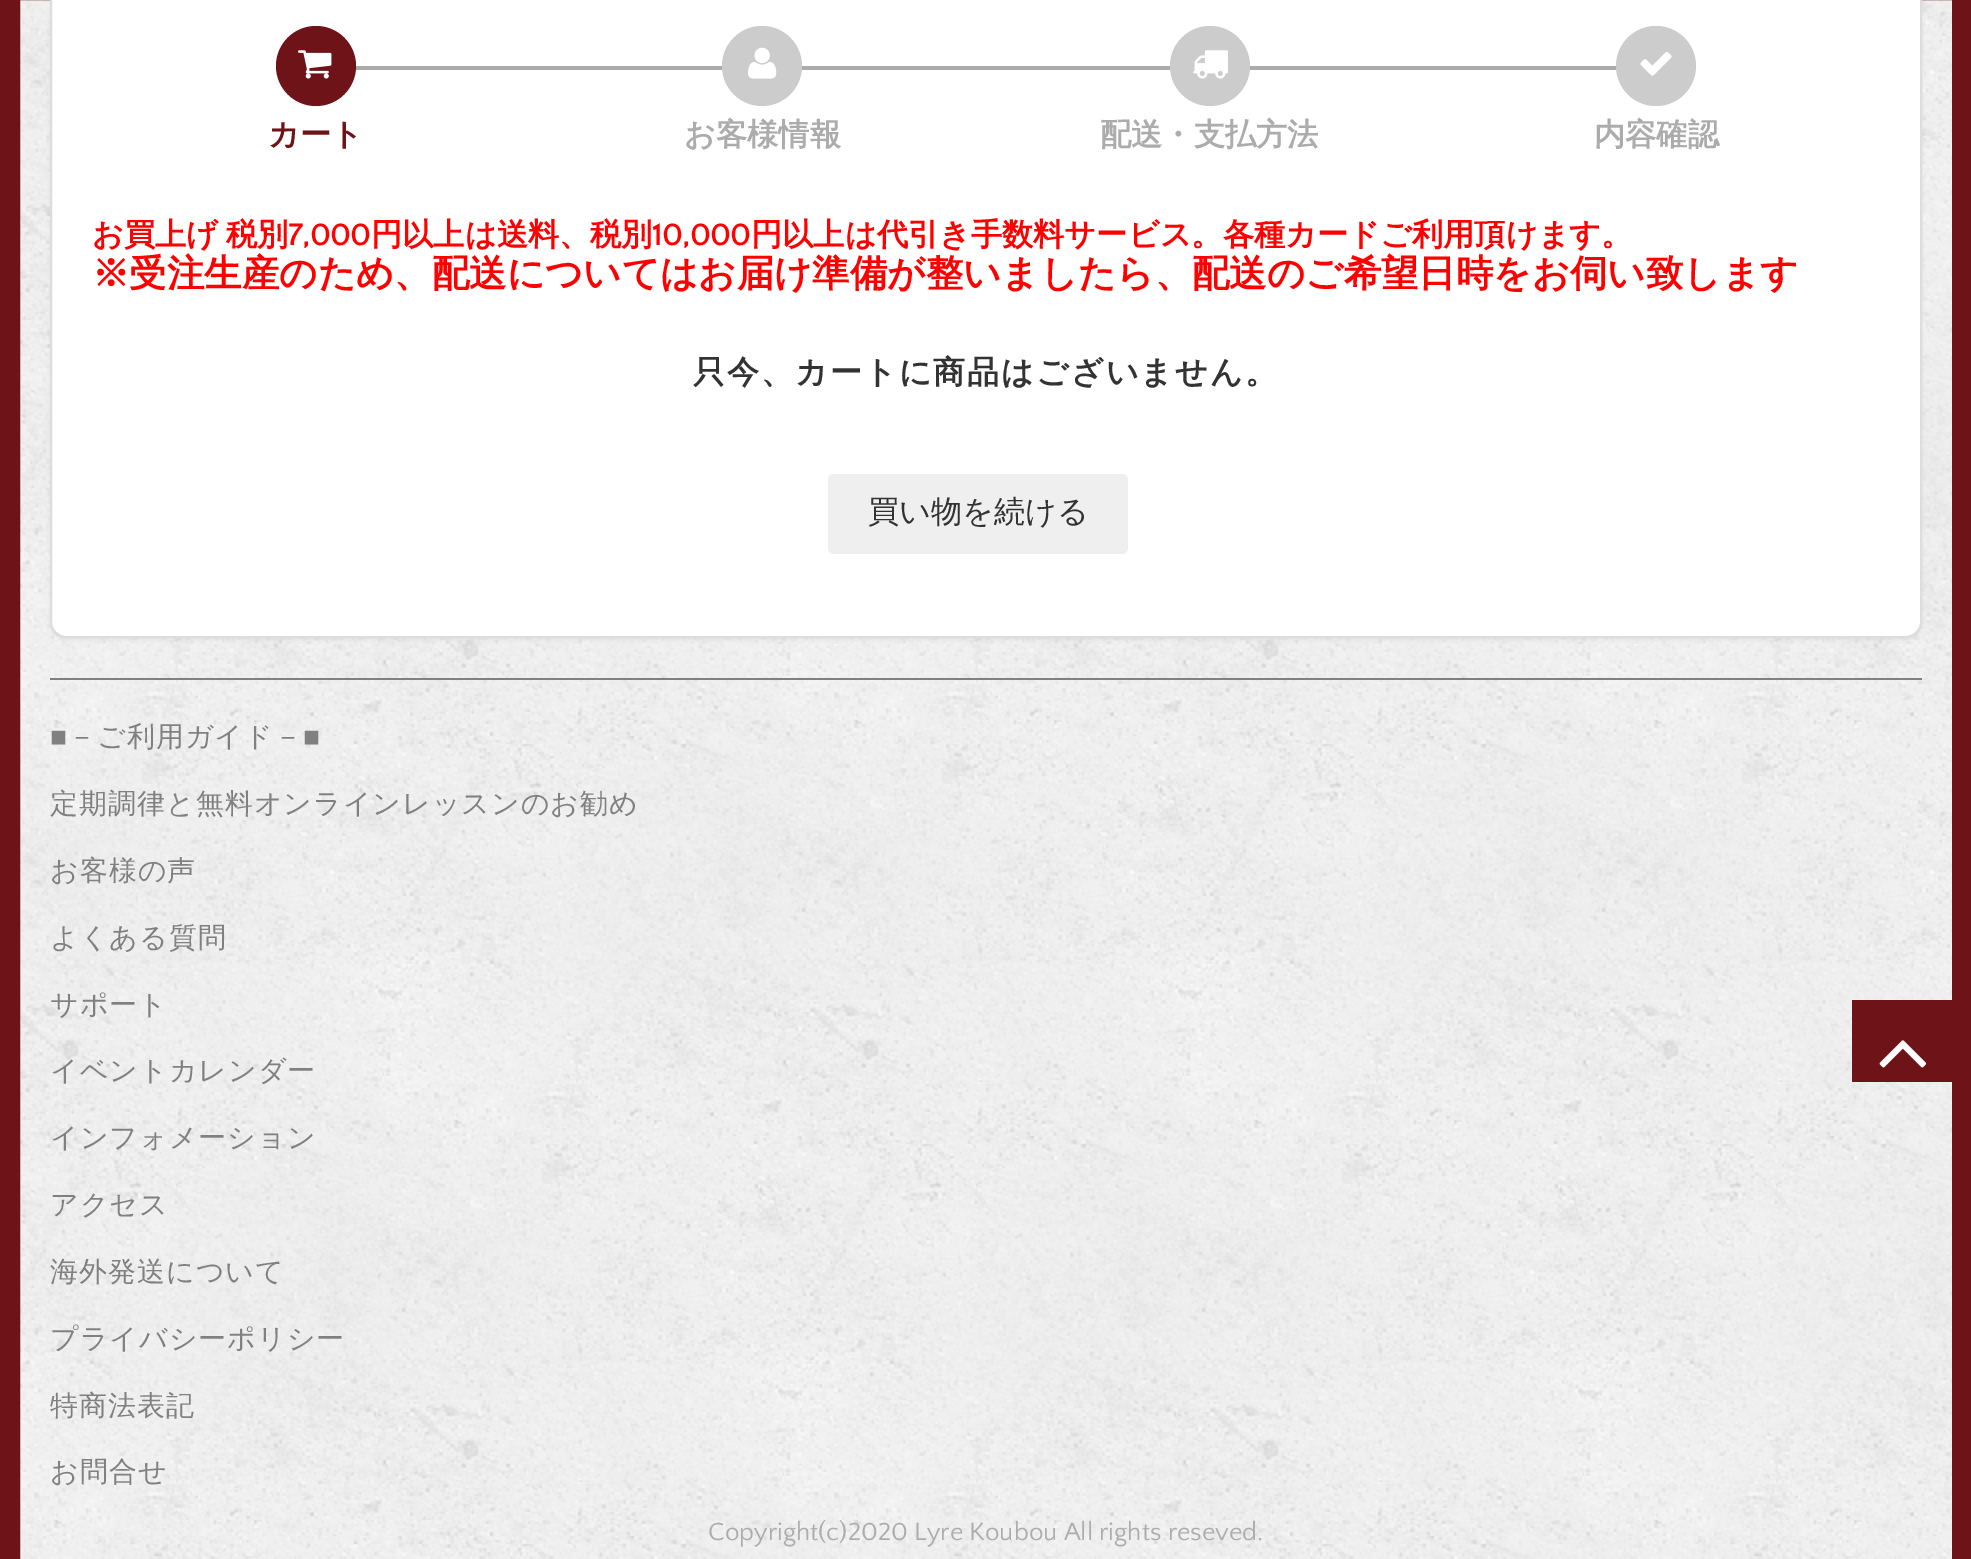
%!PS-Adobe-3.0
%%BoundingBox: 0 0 1971 1559
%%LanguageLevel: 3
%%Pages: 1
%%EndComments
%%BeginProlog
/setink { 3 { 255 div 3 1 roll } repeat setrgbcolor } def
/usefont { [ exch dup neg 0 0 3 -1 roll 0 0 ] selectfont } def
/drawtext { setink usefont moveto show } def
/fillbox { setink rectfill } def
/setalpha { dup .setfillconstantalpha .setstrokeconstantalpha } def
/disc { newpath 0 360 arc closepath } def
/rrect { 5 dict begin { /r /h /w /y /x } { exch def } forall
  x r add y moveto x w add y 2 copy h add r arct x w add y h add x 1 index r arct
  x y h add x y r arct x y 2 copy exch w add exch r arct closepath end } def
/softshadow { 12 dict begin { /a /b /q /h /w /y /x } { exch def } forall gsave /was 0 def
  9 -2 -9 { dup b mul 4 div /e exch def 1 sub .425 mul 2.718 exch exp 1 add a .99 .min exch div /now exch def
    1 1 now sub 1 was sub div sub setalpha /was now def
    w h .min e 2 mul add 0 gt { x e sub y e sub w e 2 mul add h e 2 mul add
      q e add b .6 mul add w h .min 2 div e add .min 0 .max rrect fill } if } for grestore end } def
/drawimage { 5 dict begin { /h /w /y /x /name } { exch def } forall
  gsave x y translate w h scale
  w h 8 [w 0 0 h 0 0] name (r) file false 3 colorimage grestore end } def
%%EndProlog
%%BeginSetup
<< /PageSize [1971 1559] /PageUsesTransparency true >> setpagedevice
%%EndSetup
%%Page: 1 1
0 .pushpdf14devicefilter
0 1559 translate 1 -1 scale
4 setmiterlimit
0 0 1971 1559 255 255 255 fillbox
(assets/img1.rgb) 20 0 1932 1559 drawimage
110 19 24 setink
20 setlinewidth
10 -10 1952 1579 rectstroke
0 0 0 setink
50 -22 1872 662 16 2 0.05 softshadow
255 255 255 setink
51 -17 1870 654 15 rrect gsave fill grestore
221 221 221 setink
2 setlinewidth
stroke
355 66 1262 4 170 170 170 fillbox
110 19 24 setink
316 66 40 disc fill
(assets/img2.rgb) 298 50 34 29 drawimage
(カート) 268 145 /WenQuanYiZenHei-Bold 31.2 110 19 24 drawtext
204 204 204 setink
762 66 40 disc fill
(assets/img3.rgb) 748 47 29 32 drawimage
(お客様情報) 684 145 /WenQuanYiZenHei-Bold 31.2 172 172 172 drawtext
204 204 204 setink
1210 66 40 disc fill
(assets/img4.rgb) 1193 50 35 29 drawimage
(配送・支払方法) 1100 145 /WenQuanYiZenHei-Bold 31.2 172 172 172 drawtext
204 204 204 setink
1656 66 40 disc fill
(assets/img5.rgb) 1640 52 32 24 drawimage
(内容確認) 1594 145 /WenQuanYiZenHei-Bold 31.2 172 172 172 drawtext
255 0 0 setink
92 245 moveto -2 0 32 (お買上げ 税別) widthshow
(7,000) 288 245 /QuattrocentoSans-Bold 31.2 255 0 0 drawtext
(円以上は送料、税別) 371 245 /WenQuanYiZenHei-Bold 31.2 255 0 0 drawtext
(10,000) 652 245 /QuattrocentoSans-Bold 31.2 255 0 0 drawtext
(円以上は代引き手数料サービス。各種カードご利用頂けます。) 751 245 /WenQuanYiZenHei-Bold 31.2 255 0 0 drawtext
(※受注生産のため、配送についてはお届け準備が整いましたら、配送のご希望日時をお伺い致します) 92 286 /WenQuanYiZenHei-Bold 37.45 255 0 0 drawtext
/WenQuanYiZenHei-Bold 32 usefont
51 51 51 setink
693 383 moveto 2 0 (只今、カートに商品はございません。) ashow
239 239 239 setink
828 474 300 80 6 rrect fill
(買い物を続ける) 868 522 /WenQuanYiZenHei-Medium 31.2 51 51 51 drawtext
50 678 1872 2 128 128 128 fillbox
/LiberationSans-Regular 28 usefont
50 746 moveto 1 0 (■) ashow
/WenQuanYiZenHei-Medium 28 usefont
68 746 moveto 1 0 (－ご利用ガイド－) ashow
/LiberationSans-Regular 28 usefont
303 746 moveto 1 0 (■) ashow
/WenQuanYiZenHei-Medium 28 usefont
50 813 moveto 1 0 (定期調律と無料オンラインレッスンのお勧め) ashow
50 880 moveto 1 0 (お客様の声) ashow
50 947 moveto 1 0 (よくある質問) ashow
50 1014 moveto 1 0 (サポート) ashow
50 1080 moveto 1 0 (イベントカレンダー) ashow
50 1147 moveto 1 0 (インフォメーション) ashow
50 1214 moveto 1 0 (アクセス) ashow
50 1281 moveto 1 0 (海外発送について) ashow
50 1348 moveto 1 0 (プライバシーポリシー) ashow
50 1415 moveto 1 0 (特商法表記) ashow
50 1481 moveto 1 0 (お問合せ) ashow
(Copyright\(c\)2020 Lyre Koubou All rights reseved.) 708 1540 /QuattrocentoSans-Regular 26 172 172 172 drawtext
1852 1000 100 82 110 19 24 fillbox
(assets/img6.rgb) 1879 1040 48 28 drawimage
.poppdf14devicefilter showpage
%%EOF
